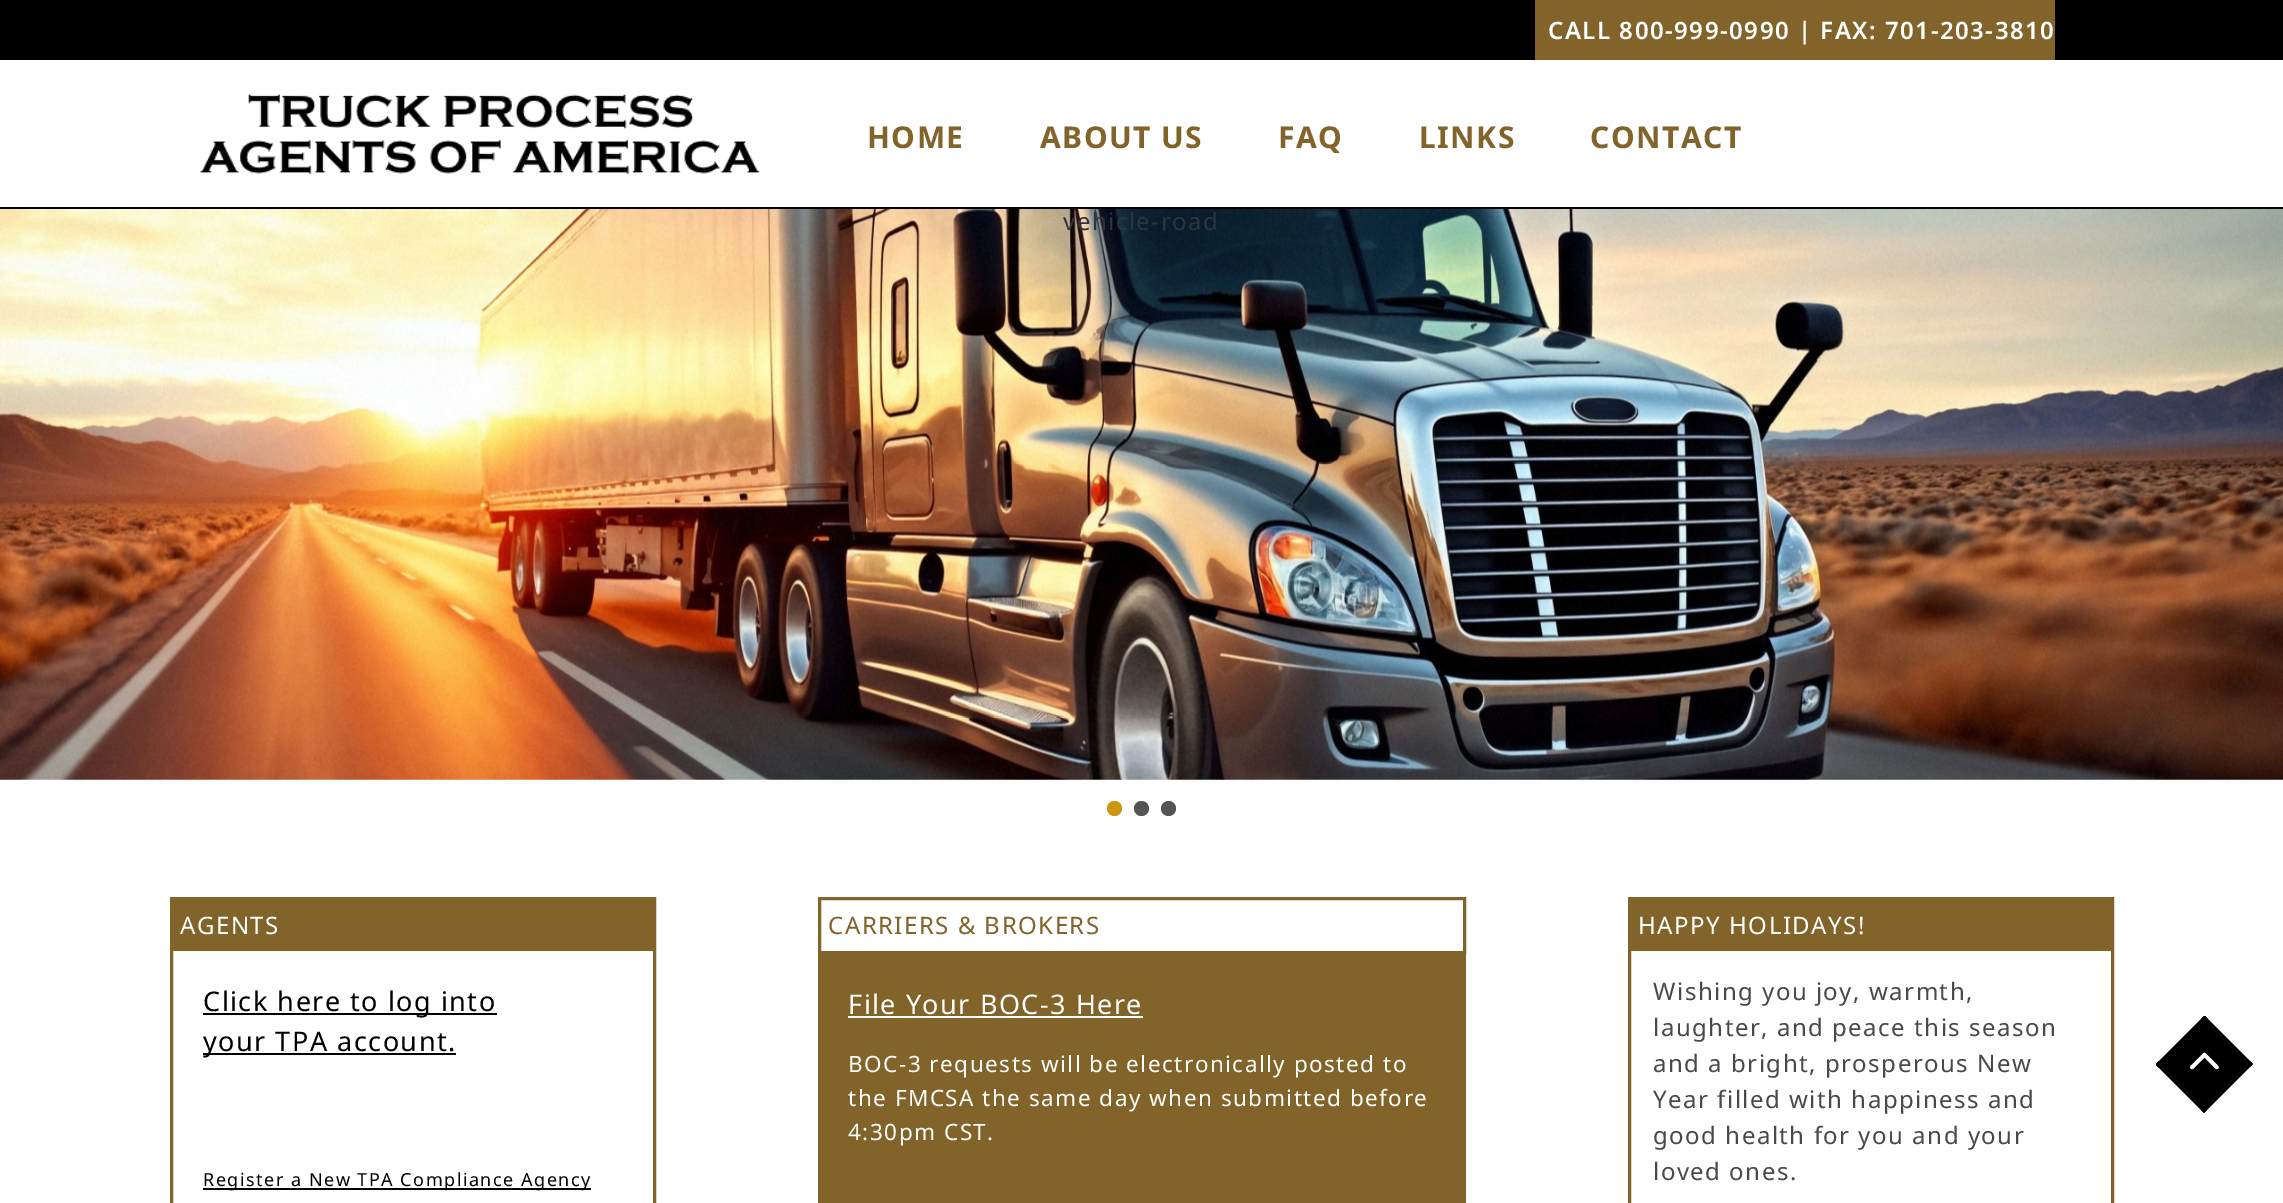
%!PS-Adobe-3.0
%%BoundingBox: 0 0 2283 1203
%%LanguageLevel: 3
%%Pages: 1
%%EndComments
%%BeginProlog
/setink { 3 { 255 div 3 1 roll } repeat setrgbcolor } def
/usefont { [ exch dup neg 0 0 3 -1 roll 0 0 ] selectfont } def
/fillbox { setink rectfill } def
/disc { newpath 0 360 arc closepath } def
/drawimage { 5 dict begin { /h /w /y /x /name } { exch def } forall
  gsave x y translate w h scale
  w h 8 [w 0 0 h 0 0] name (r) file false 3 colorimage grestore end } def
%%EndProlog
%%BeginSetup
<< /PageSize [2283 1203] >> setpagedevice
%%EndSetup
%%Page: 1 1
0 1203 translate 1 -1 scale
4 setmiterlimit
0 0 2283 1203 255 255 255 fillbox
0 0 2283 60 0 0 0 fillbox
1535 0 520 60 130 99 42 fillbox
/NotoSans-SemiBold 24 usefont
255 255 255 setink
1548 39 moveto 1.5 0 (CALL 800-999-0990 | FAX: 701-203-3810) ashow
0 207 2283 2 0 0 0 fillbox
(assets/img1.rgb) 200 93 560 82 drawimage
/NotoSans-Bold 30 usefont
130 99 42 setink
867 148 moveto 1.5 0 (HOME) ashow
1040 148 moveto 1.5 0 (ABOUT US) ashow
1278 148 moveto 1.5 0 (FAQ) ashow
1419 148 moveto 1.5 0 (LINKS) ashow
1590 148 moveto 1.5 0 (CONTACT) ashow
(assets/img2.rgb) 0 209 2283 571 drawimage
/NotoSans-Regular 24 usefont
44 53 61 setink
1063 230 moveto 1.5 0 (vehicle-road) ashow
202 149 15 setink
1114.5 808.5 7.5 disc fill
84 84 84 setink
1141.5 808.5 7.5 disc fill
1168.5 808.5 7.5 disc fill
130 99 42 setink
3 setlinewidth
171.5 898.5 483 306 rectstroke
173 900 480 51 130 99 42 fillbox
255 255 255 setink
180 934 moveto 1.5 0 (AGENTS) ashow
203 1013 294 2 0 0 0 fillbox
/NotoSans-Regular 27 usefont
203 1011 moveto 1.5 0 (Click here to log into) ashow
203 1053 253 2 0 0 0 fillbox
203 1051 moveto 1.5 0 (your TPA account.) ashow
203 1188 388 2 0 0 0 fillbox
/NotoSans-Regular 18 usefont
203 1186 moveto 1.5 0 (Register a New TPA Compliance Agency) ashow
818 954 648 249 130 99 42 fillbox
819.5 898.5 645 54 rectstroke
/NotoSans-Regular 24 usefont
828 934 moveto 1.5 0 (CARRIERS & BROKERS) ashow
/NotoSans-Regular 27 usefont
255 255 255 setink
848 1014 moveto 1.5 0 (File Your BOC-3 Here) ashow
848 1016 295 2 255 255 255 fillbox
/NotoSans-Regular 22.5 usefont
848 1072 moveto 1.5 0 (BOC-3 requests will be electronically posted to) ashow
848 1106 moveto 1.5 0 (the FMCSA the same day when submitted before) ashow
848 1140 moveto 1.5 0 (4:30pm CST.) ashow
130 99 42 setink
1629.5 898.5 483 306 rectstroke
1631 900 480 51 130 99 42 fillbox
/NotoSans-Regular 24 usefont
255 255 255 setink
1638 934 moveto 1.5 0 (HAPPY HOLIDAYS!) ashow
71 74 77 setink
1653 1000 moveto 1.5 0 (Wishing you joy, warmth,) ashow
1653 1036 moveto 1.5 0 (laughter, and peace this season) ashow
1653 1072 moveto 1.5 0 (and a bright, prosperous New) ashow
1653 1108 moveto 1.5 0 (Year filled with happiness and) ashow
1653 1144 moveto 1.5 0 (good health for you and your) ashow
1653 1180 moveto 1.5 0 (loved ones.) ashow
0 0 0 setink
2156 1064 moveto 2204 1016 lineto 2205 1016 lineto 2253 1064 lineto 2204 1113 lineto 2156 1065 lineto closepath fill
2156 1065 moveto 2156 1064 lineto 2159 1061 lineto 2159 1068 lineto closepath 2205 1016 moveto 2204 1016 lineto 2201 1019 lineto 2208 1019 lineto closepath 2250 1061 moveto 2253 1064 lineto 2250 1067 lineto closepath 2207 1110 moveto 2204 1113 lineto 2201 1110 lineto closepath eofill
(assets/img3.rgb) 2190 1052 29 18 drawimage
showpage
%%EOF
